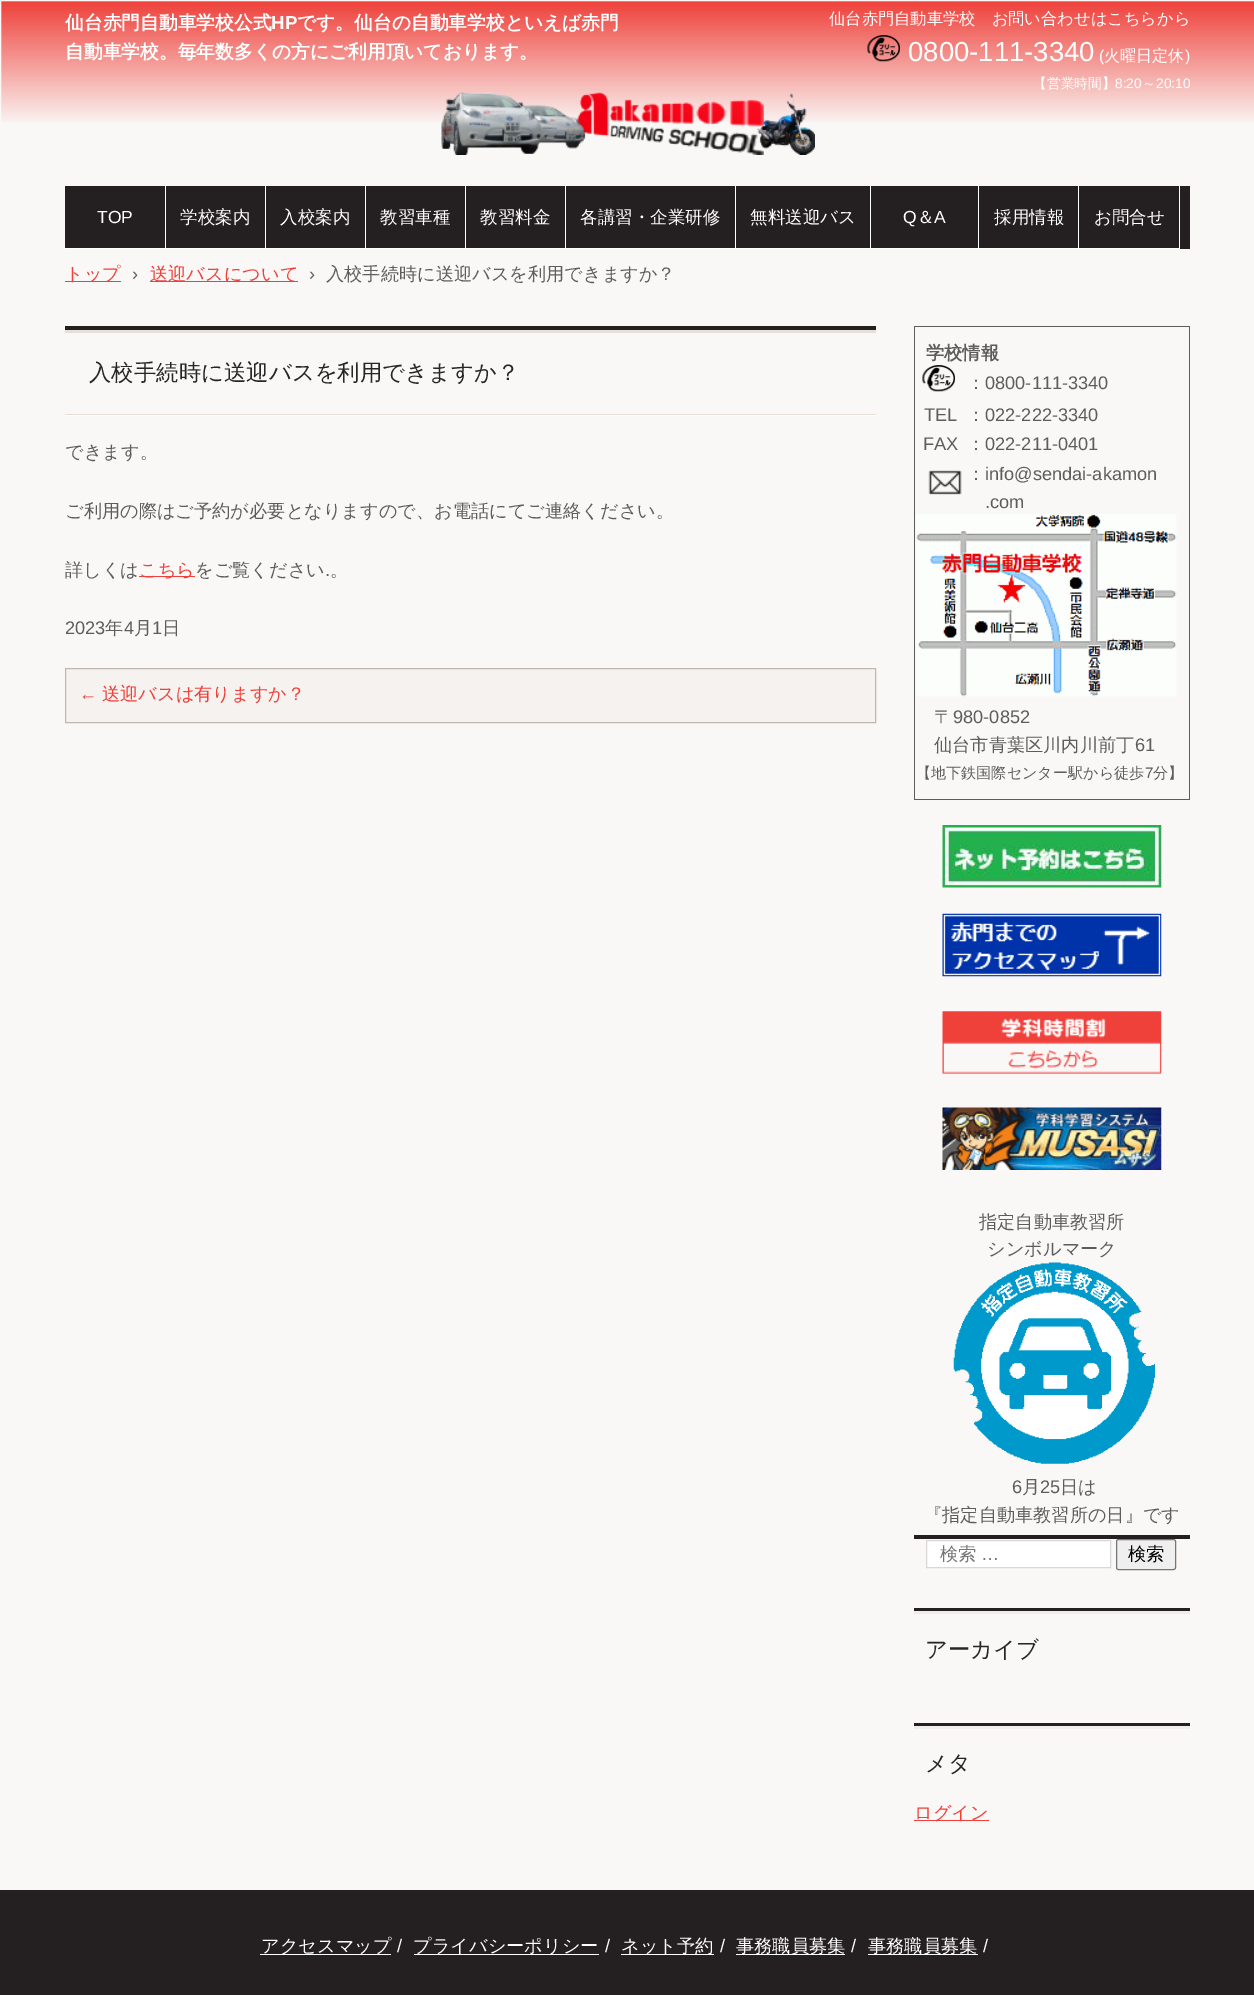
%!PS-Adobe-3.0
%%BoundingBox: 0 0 1254 1995
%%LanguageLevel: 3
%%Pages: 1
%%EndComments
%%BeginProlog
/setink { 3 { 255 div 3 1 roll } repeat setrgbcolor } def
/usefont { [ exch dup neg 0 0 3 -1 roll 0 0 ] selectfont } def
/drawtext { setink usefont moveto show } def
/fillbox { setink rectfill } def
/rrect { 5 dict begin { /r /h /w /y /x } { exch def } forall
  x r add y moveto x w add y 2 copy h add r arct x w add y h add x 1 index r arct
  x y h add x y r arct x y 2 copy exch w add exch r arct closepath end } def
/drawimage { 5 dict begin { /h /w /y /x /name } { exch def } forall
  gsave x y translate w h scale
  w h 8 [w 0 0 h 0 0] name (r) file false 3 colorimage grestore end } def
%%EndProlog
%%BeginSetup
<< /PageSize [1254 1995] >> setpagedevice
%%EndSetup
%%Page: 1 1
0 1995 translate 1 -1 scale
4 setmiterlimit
0 0 1254 1995 250 248 246 fillbox
(assets/img1.rgb) 1 1 1253 121 drawimage
(仙台赤門自動車学校公式) 65 29 /WenQuanYiZenHei-Bold 18.75 255 255 255 drawtext
(HP) 271 29 /LiberationSans-Bold 18.75 255 255 255 drawtext
(です。仙台の自動車学校といえば赤門) 297 29 /WenQuanYiZenHei-Bold 18.75 255 255 255 drawtext
(自動車学校。毎年数多くの方にご利用頂いております。) 65 58 /WenQuanYiZenHei-Bold 18.75 255 255 255 drawtext
(assets/img2.rgb) 441 92 374 63 drawimage
(仙台赤門自動車学校　お問い合わせはこちらから) 829 24 /WenQuanYiZenHei-Medium 16.25 255 255 255 drawtext
(assets/img3.rgb) 867 35 33 27 drawimage
(0800-111-3340) 908 61 /LiberationSans-Regular 27.5 255 255 255 drawtext
(\() 1099 61 /LiberationSans-Regular 16 255 255 255 drawtext
(火曜日定休) 1104 61 /WenQuanYiZenHei-Medium 16 255 255 255 drawtext
(\)) 1185 61 /LiberationSans-Regular 16 255 255 255 drawtext
(【営業時間】) 1033 88 /WenQuanYiZenHei-Medium 13.75 255 255 255 drawtext
(8:20) 1115 88 /LiberationSans-Regular 13.75 255 255 255 drawtext
(～) 1142 88 /WenQuanYiZenHei-Medium 13.75 255 255 255 drawtext
(20:10) 1156 88 /LiberationSans-Regular 13.75 255 255 255 drawtext
65 186 1125 63 36 31 32 fillbox
165 186 1 63 255 255 255 fillbox
65 248 101 1 255 255 255 fillbox
(TOP) 97 223 /LiberationSans-Regular 17.5 255 255 255 drawtext
265 186 1 63 255 255 255 fillbox
166 248 100 1 255 255 255 fillbox
(学校案内) 180 223 /WenQuanYiZenHei-Medium 17.5 255 255 255 drawtext
365 186 1 63 255 255 255 fillbox
266 248 100 1 255 255 255 fillbox
(入校案内) 280 223 /WenQuanYiZenHei-Medium 17.5 255 255 255 drawtext
465 186 1 63 255 255 255 fillbox
366 248 100 1 255 255 255 fillbox
(教習車種) 380 223 /WenQuanYiZenHei-Medium 17.5 255 255 255 drawtext
565 186 1 63 255 255 255 fillbox
466 248 100 1 255 255 255 fillbox
(教習料金) 480 223 /WenQuanYiZenHei-Medium 17.5 255 255 255 drawtext
735 186 1 63 255 255 255 fillbox
566 248 170 1 255 255 255 fillbox
(各講習・企業研修) 580 223 /WenQuanYiZenHei-Medium 17.5 255 255 255 drawtext
870 186 1 63 255 255 255 fillbox
736 248 135 1 255 255 255 fillbox
(無料送迎バス) 750 223 /WenQuanYiZenHei-Medium 17.5 255 255 255 drawtext
978 186 1 63 255 255 255 fillbox
871 248 108 1 255 255 255 fillbox
(Q) 903 223 /LiberationSans-Regular 17.5 255 255 255 drawtext
(＆) 917 223 /WenQuanYiZenHei-Medium 17.5 255 255 255 drawtext
(A) 934 223 /LiberationSans-Regular 17.5 255 255 255 drawtext
1078 186 1 63 255 255 255 fillbox
979 248 100 1 255 255 255 fillbox
(採用情報) 994 223 /WenQuanYiZenHei-Medium 17.5 255 255 255 drawtext
1179 186 1 63 255 255 255 fillbox
1079 248 101 1 255 255 255 fillbox
(お問合せ) 1094 223 /WenQuanYiZenHei-Medium 17.5 255 255 255 drawtext
65 281 56 1 239 64 58 fillbox
(トップ) 65 280 /WenQuanYiZenHei-Medium 18.2 239 64 58 drawtext
(›) 132 280 /LiberationSans-Regular 18.2 93 93 93 drawtext
150 281 148 1 239 64 58 fillbox
(送迎バスについて) 150 280 /WenQuanYiZenHei-Medium 18.2 239 64 58 drawtext
(›) 309 280 /LiberationSans-Regular 18.2 93 93 93 drawtext
(入校手続時に送迎バスを利用できますか？) 326 280 /WenQuanYiZenHei-Medium 18.2 93 93 93 drawtext
65 415 811 1 255 255 255 fillbox
65 330 811 3 230 224 220 fillbox
65 326 811 4 36 31 32 fillbox
65 414 811 1 230 221 213 fillbox
(入校手続時に送迎バスを利用できますか？) 89 380 /WenQuanYiZenHei-Medium 22.4 38 38 38 drawtext
(できます。) 65 458 /WenQuanYiZenHei-Medium 18.2 93 93 93 drawtext
(ご利用の際はご予約が必要となりますので、お電話にてご連絡ください。) 65 517 /WenQuanYiZenHei-Medium 18.2 93 93 93 drawtext
(詳しくは) 65 576 /WenQuanYiZenHei-Medium 18.2 93 93 93 drawtext
139 576 56 1 239 64 58 fillbox
(こちら) 139 576 /WenQuanYiZenHei-Medium 18.2 239 64 58 drawtext
(をご覧ください) 195 576 /WenQuanYiZenHei-Medium 18.2 93 93 93 drawtext
(.) 325 576 /LiberationSans-Regular 18.2 93 93 93 drawtext
(。) 330 576 /WenQuanYiZenHei-Medium 18.2 93 93 93 drawtext
(2023) 65 634 /LiberationSans-Regular 18.2 93 93 93 drawtext
(年) 105 634 /WenQuanYiZenHei-Medium 18.2 93 93 93 drawtext
(4) 124 634 /LiberationSans-Regular 18.2 93 93 93 drawtext
(月) 134 634 /WenQuanYiZenHei-Medium 18.2 93 93 93 drawtext
(1) 152 634 /LiberationSans-Regular 18.2 93 93 93 drawtext
(日) 162 634 /WenQuanYiZenHei-Medium 18.2 93 93 93 drawtext
246 242 239 setink
65.5 668.5 moveto 875.5 668.5 lineto 875.5 722.5 lineto 65.5 722.5 lineto closepath gsave fill grestore
190 183 178 setink
stroke
(←) 79 700 /LiberationSans-Regular 18.2 239 64 58 drawtext
(送迎バスは有りますか？) 102 700 /WenQuanYiZenHei-Medium 18.2 239 64 58 drawtext
914 326 276 1 93 93 93 fillbox
1189 326 1 474 93 93 93 fillbox
914 799 276 1 93 93 93 fillbox
914 326 1 474 93 93 93 fillbox
(学校情報) 926 359 /WenQuanYiZenHei-Bold 18.2 93 93 93 drawtext
(assets/img4.rgb) 922 365 33 27 drawimage
(：) 967 389 /WenQuanYiZenHei-Medium 18.2 93 93 93 drawtext
(0800-111-3340) 985 389 /LiberationSans-Regular 18.2 93 93 93 drawtext
(TEL) 924 421 /LiberationSans-Regular 18.2 93 93 93 drawtext
(：) 967 421 /WenQuanYiZenHei-Medium 18.2 93 93 93 drawtext
(022-222-3340) 985 421 /LiberationSans-Regular 18.2 93 93 93 drawtext
(FAX) 923 450 /LiberationSans-Regular 18.2 93 93 93 drawtext
(：) 967 450 /WenQuanYiZenHei-Medium 18.2 93 93 93 drawtext
(022-211-0401) 985 450 /LiberationSans-Regular 18.2 93 93 93 drawtext
(assets/img5.rgb) 928 470 34 25 drawimage
(：) 967 480 /WenQuanYiZenHei-Medium 18.2 93 93 93 drawtext
(info@sendai-akamon) 985 480 /LiberationSans-Regular 18.2 93 93 93 drawtext
(.com) 985 508 /LiberationSans-Regular 18.2 93 93 93 drawtext
(assets/img6.rgb) 916 514 261 183 drawimage
(〒) 934 723 /WenQuanYiZenHei-Medium 18.2 93 93 93 drawtext
(980-0852) 953 723 /LiberationSans-Regular 18.2 93 93 93 drawtext
(仙台市青葉区川内川前丁) 934 751 /WenQuanYiZenHei-Medium 18.2 93 93 93 drawtext
(61) 1135 751 /LiberationSans-Regular 18.2 93 93 93 drawtext
(【地下鉄国際センター駅から徒歩) 916 778 /WenQuanYiZenHei-Medium 15.1 93 93 93 drawtext
(7) 1145 778 /LiberationSans-Regular 15.1 93 93 93 drawtext
(分】) 1153 778 /WenQuanYiZenHei-Medium 15.1 93 93 93 drawtext
(assets/img7.rgb) 942 825 220 63 drawimage
(assets/img8.rgb) 942 913 220 64 drawimage
(assets/img9.rgb) 942 1011 220 63 drawimage
(assets/img10.rgb) 942 1107 220 63 drawimage
(指定自動車教習所) 979 1228 /WenQuanYiZenHei-Medium 18.2 93 93 93 drawtext
(シンボルマーク) 987 1255 /WenQuanYiZenHei-Medium 18.2 93 93 93 drawtext
(assets/img11.rgb) 953 1262 202 202 drawimage
(6) 1012 1493 /LiberationSans-Regular 18.2 93 93 93 drawtext
(月) 1022 1493 /WenQuanYiZenHei-Medium 18.2 93 93 93 drawtext
(25) 1040 1493 /LiberationSans-Regular 18.2 93 93 93 drawtext
(日は) 1060 1493 /WenQuanYiZenHei-Medium 18.2 93 93 93 drawtext
(『指定自動車教習所の日』です) 924 1521 /WenQuanYiZenHei-Medium 18.2 93 93 93 drawtext
914 1535 276 4 36 31 32 fillbox
255 255 255 setink
926.5 1540.5 moveto 1110.5 1540.5 lineto 1110.5 1567.5 lineto 926.5 1567.5 lineto closepath gsave fill grestore
216 216 216 setink
stroke
(検索) 940 1560 /WenQuanYiZenHei-Medium 18.2 117 117 117 drawtext
(…) 981 1560 /LiberationSans-Regular 18.2 117 117 117 drawtext
239 239 239 setink
1116.5 1539.5 59 30 2 rrect gsave fill grestore
118 118 118 setink
stroke
(検索) 1128 1560 /WenQuanYiZenHei-Medium 18.2 0 0 0 drawtext
914 1608 276 3 36 31 32 fillbox
914 1611 276 3 240 236 233 fillbox
(アーカイブ) 925 1657 /WenQuanYiZenHei-Medium 22.4 38 38 38 drawtext
914 1723 276 3 36 31 32 fillbox
914 1726 276 3 240 236 233 fillbox
(メタ) 925 1771 /WenQuanYiZenHei-Medium 22.4 38 38 38 drawtext
914 1820 75 1 239 64 58 fillbox
(ログイン) 914 1819 /WenQuanYiZenHei-Medium 18.2 239 64 58 drawtext
0 1890 1254 105 36 31 32 fillbox
260 1954 131 1 255 255 255 fillbox
(アクセスマップ) 261 1952 /WenQuanYiZenHei-Medium 18.2 255 255 255 drawtext
(/) 397 1952 /LiberationSans-Regular 18.2 255 255 255 drawtext
414 1954 185 1 255 255 255 fillbox
(プライバシーポリシー) 413 1952 /WenQuanYiZenHei-Medium 18.2 255 255 255 drawtext
(/) 605 1952 /LiberationSans-Regular 18.2 255 255 255 drawtext
621 1954 93 1 255 255 255 fillbox
(ネット予約) 621 1952 /WenQuanYiZenHei-Medium 18.2 255 255 255 drawtext
(/) 720 1952 /LiberationSans-Regular 18.2 255 255 255 drawtext
736 1954 109 1 255 255 255 fillbox
(事務職員募集) 736 1952 /WenQuanYiZenHei-Medium 18.2 255 255 255 drawtext
(/) 851 1952 /LiberationSans-Regular 18.2 255 255 255 drawtext
868 1954 110 1 255 255 255 fillbox
(事務職員募集) 868 1952 /WenQuanYiZenHei-Medium 18.2 255 255 255 drawtext
(/) 983 1952 /LiberationSans-Regular 18.2 255 255 255 drawtext
showpage
%%EOF
